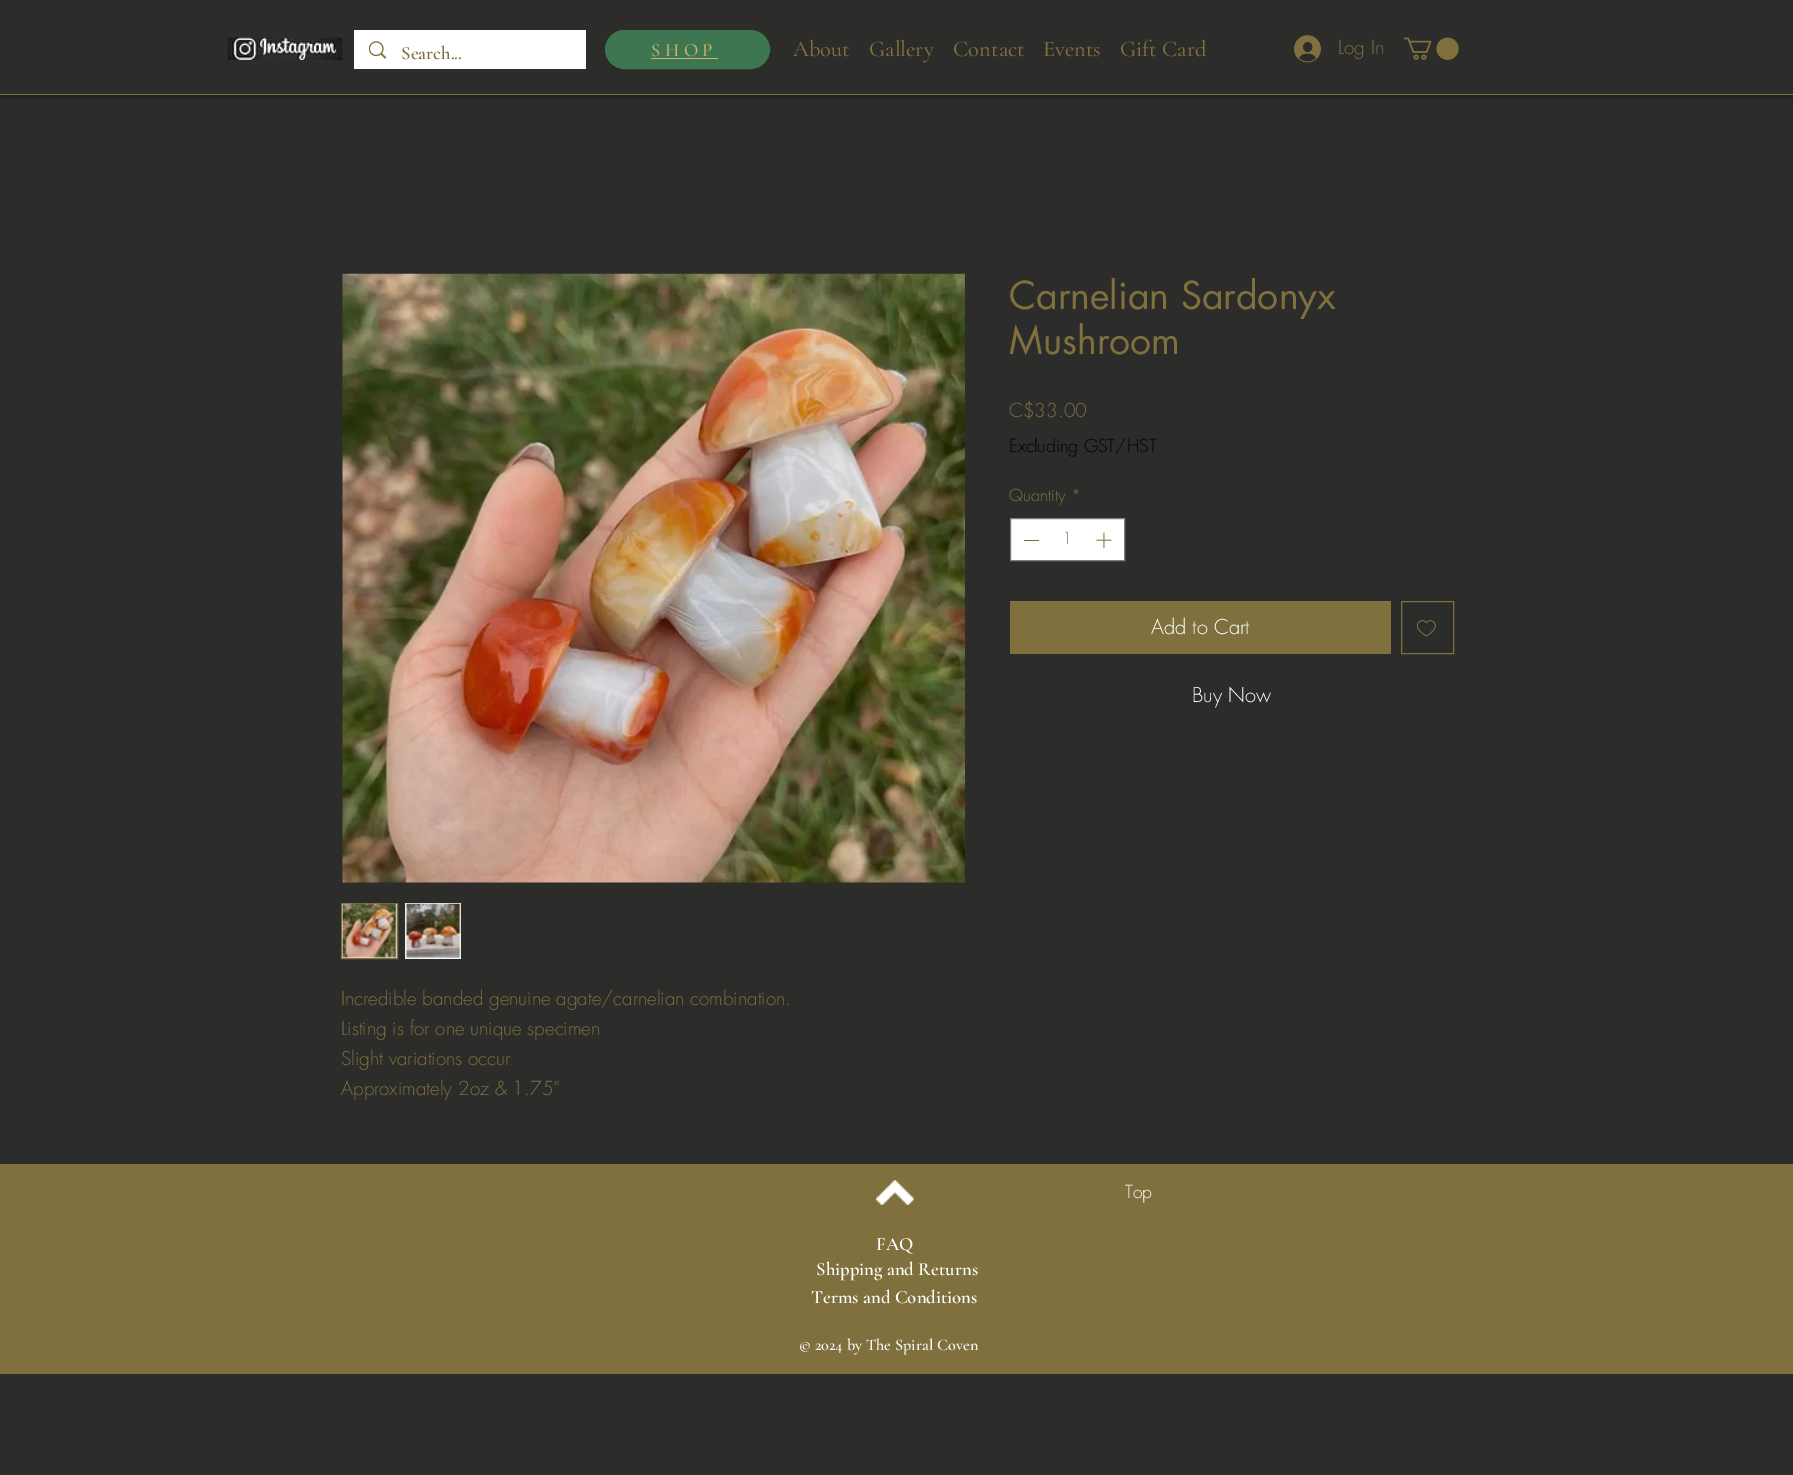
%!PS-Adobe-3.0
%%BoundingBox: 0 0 1793 1475
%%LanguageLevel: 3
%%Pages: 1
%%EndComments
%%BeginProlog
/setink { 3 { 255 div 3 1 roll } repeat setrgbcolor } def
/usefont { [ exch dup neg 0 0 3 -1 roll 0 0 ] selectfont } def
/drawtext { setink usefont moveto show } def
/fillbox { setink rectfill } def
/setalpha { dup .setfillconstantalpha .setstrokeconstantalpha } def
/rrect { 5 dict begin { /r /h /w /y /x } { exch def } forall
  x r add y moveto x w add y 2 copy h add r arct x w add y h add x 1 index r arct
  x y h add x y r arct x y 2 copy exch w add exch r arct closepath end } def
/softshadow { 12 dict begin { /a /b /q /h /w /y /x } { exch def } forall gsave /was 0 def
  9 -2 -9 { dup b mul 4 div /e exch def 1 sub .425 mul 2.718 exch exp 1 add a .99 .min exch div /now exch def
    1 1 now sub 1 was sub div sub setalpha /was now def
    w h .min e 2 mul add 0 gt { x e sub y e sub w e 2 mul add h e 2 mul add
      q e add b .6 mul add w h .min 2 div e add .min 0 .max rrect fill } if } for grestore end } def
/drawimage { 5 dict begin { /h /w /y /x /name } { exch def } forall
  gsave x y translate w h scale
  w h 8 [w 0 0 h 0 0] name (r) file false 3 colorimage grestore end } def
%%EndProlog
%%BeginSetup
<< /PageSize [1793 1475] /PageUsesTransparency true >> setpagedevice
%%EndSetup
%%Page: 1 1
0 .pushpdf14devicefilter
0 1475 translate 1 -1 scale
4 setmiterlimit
0 0 1793 1475 44 44 43 fillbox
0 0 0 setink
0 0 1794 95 0 3 0.7 softshadow
0 0 1793 94 44 44 43 fillbox
0 94 1793 1 127 112 61 fillbox
(assets/img1.rgb) 227 37 116 23 drawimage
354 30 232 39 255 255 255 fillbox
(assets/img2.rgb) 369 41 17 18 drawimage
(Search...) 401 59 /CormorantGaramond-SemiBold 18.75 127 112 61 drawtext
63 118 82 setink
605.5 30.5 164 38 19 rrect gsave fill grestore
stroke
/CormorantGaramond-Medium 18.75 usefont
203 182 108 setink
651 56 moveto 4.5 0 (SHOP) ashow
651 58 67 1 203 182 108 fillbox
(About) 793 56 /CormorantGaramond-Medium 22.5 127 112 61 drawtext
(Gallery) 869 56 /CormorantGaramond-Medium 22.5 127 112 61 drawtext
(Contact) 953 56 /CormorantGaramond-Medium 22.5 127 112 61 drawtext
(Events) 1043 56 /CormorantGaramond-Medium 22.5 127 112 61 drawtext
(Gift Card) 1120 56 /CormorantGaramond-Medium 22.5 127 112 61 drawtext
(assets/img3.rgb) 1294 35 27 28 drawimage
(Log In) 1338 54 /futura-Light 18.75 127 112 61 drawtext
(assets/img4.rgb) 1403 37 56 23 drawimage
(Carnelian Sardonyx) 1009 309 /futura-Regular 37.5 127 112 61 drawtext
(Mushroom) 1009 354 /futura-Regular 37.5 127 112 61 drawtext
(C$33.00) 1009 417 /futura-Light 18.75 127 112 61 drawtext
(Excluding GST/HST) 1009 452 /futura-Light 17.5 0 0 0 drawtext
(Quantity *) 1009 501 /futura-Light 16.25 127 112 61 drawtext
255 255 255 setink
1010.5 518.5 moveto 1124.5 518.5 lineto 1124.5 560.5 lineto 1010.5 560.5 lineto closepath gsave fill grestore
128 128 128 setink
stroke
1024 540 15 1 127 112 61 fillbox
(1) 1062 544 /futura-Light 16.25 127 112 61 drawtext
(assets/img5.rgb) 1096 532 16 16 drawimage
1010 601 381 53 127 112 61 fillbox
(Add to Cart) 1151 634 /futura-Light 20 255 255 255 drawtext
127 112 61 setink
1401.5 601.5 52 52 rectstroke
(assets/img6.rgb) 1417 620 19 17 drawimage
(Buy Now) 1192 702 /futura-Light 20 255 255 255 drawtext
(assets/img7.rgb) 342 273 623 610 drawimage
246 245 245 setink
341.5 903.5 moveto 397.5 903.5 lineto 397.5 958.5 lineto 341.5 958.5 lineto closepath gsave fill grestore
127 112 61 setink
stroke
(assets/img8.rgb) 342 903 55 55 drawimage
405 903 56 56 246 245 245 fillbox
(assets/img9.rgb) 405 903 56 55 drawimage
(Incredible banded genuine agate/carnelian combination.) 341 1005 /futura-Light 18.75 127 112 61 drawtext
(Listing is for one unique specimen) 341 1035 /futura-Light 18.75 127 112 61 drawtext
(Slight variations occur) 341 1065 /futura-Light 18.75 127 112 61 drawtext
(Approximately 2oz & 1.75”) 341 1095 /futura-Light 18.75 127 112 61 drawtext
0 1164 1793 210 127 112 61 fillbox
(assets/img10.rgb) 876 1180 38 25 drawimage
(Top) 1125 1198 /futura-Light 17.5 255 255 255 drawtext
(FAQ) 876 1250 /CormorantGaramond-SemiBold 18.75 255 255 255 drawtext
(Shipping and Returns) 816 1275 /CormorantGaramond-SemiBold 18.75 255 255 255 drawtext
(Terms and Conditions) 811 1303 /CormorantGaramond-SemiBold 18.75 255 255 255 drawtext
(© 2024 by The Spiral Coven) 799 1350 /CormorantGaramond-SemiBold 16.25 246 245 245 drawtext
.poppdf14devicefilter showpage
%%EOF
